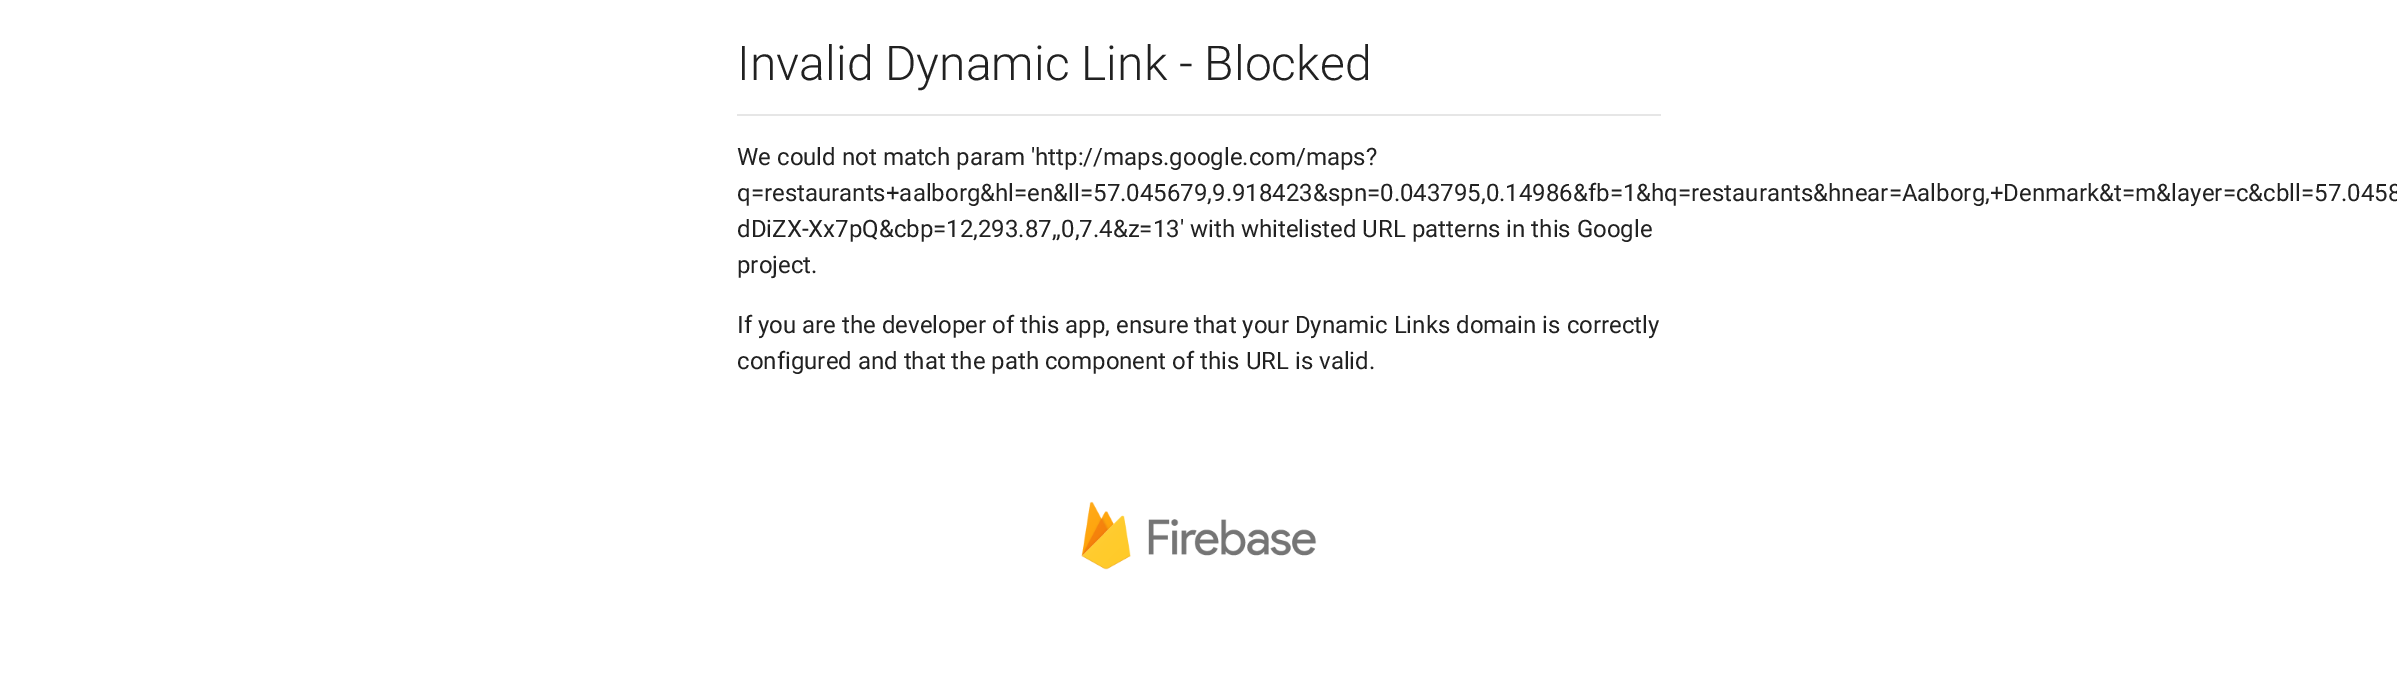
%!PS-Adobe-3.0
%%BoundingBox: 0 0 2397 690
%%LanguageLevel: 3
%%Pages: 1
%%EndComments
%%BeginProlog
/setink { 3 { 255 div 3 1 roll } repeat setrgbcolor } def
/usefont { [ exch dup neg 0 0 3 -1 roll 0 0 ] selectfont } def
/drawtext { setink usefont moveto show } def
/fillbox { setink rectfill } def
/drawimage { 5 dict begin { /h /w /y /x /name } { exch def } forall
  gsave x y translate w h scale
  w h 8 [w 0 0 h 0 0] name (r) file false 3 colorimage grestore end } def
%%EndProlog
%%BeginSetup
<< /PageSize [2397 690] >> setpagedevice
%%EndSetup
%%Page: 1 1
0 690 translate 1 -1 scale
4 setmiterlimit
0 0 2397 690 255 255 255 fillbox
737 114 924 2 230 230 230 fillbox
(Invalid Dynamic Link - Blocked) 737 80 /Roboto-Light 48 33 33 33 drawtext
(We could not match param 'http://maps.google.com/maps?) 737 165 /Roboto-Regular 24 33 33 33 drawtext
(q=restaurants+aalborg&hl=en&ll=57.045679,9.918423&spn=0.043795,0.14986&fb=1&hq=restaurants&hnear=Aalborg,+Denmark&t=m&layer=c&cbll=57.0458) 737 201 /Roboto-Regular 24 33 33 33 drawtext
(dDiZX-Xx7pQ&cbp=12,293.87,,0,7.4&z=13' with whitelisted URL patterns in this Google) 737 237 /Roboto-Regular 24 33 33 33 drawtext
(project.) 737 273 /Roboto-Regular 24 33 33 33 drawtext
(If you are the developer of this app, ensure that your Dynamic Links domain is correctly) 737 333 /Roboto-Regular 24 33 33 33 drawtext
(configured and that the path component of this URL is valid.) 737 369 /Roboto-Regular 24 33 33 33 drawtext
(assets/img1.rgb) 1081 501 236 69 drawimage
showpage
%%EOF
